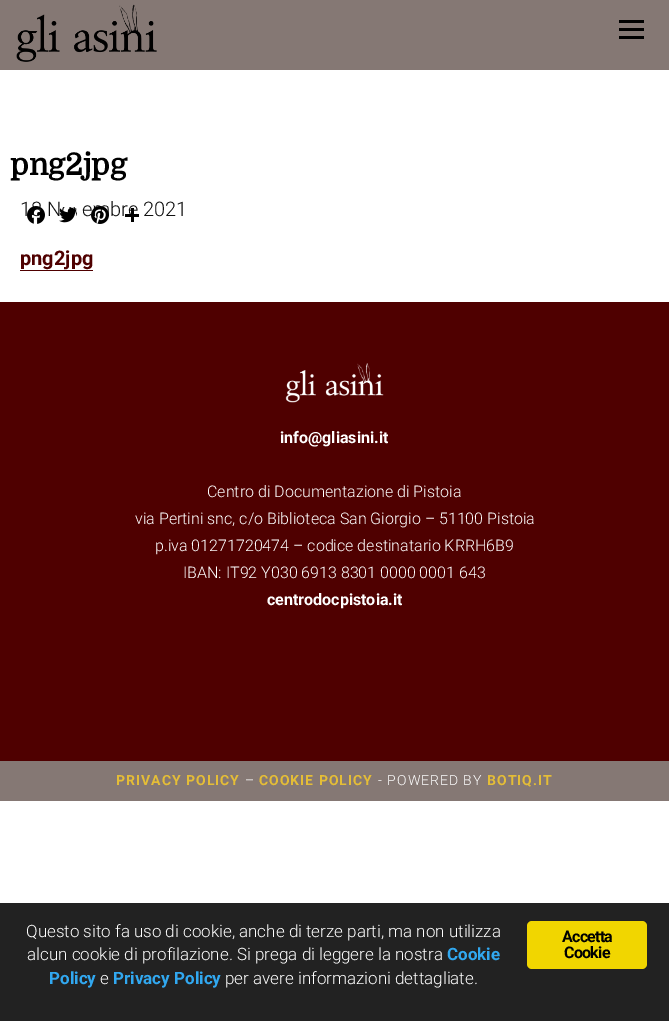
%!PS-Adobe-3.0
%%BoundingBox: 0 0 669 1021
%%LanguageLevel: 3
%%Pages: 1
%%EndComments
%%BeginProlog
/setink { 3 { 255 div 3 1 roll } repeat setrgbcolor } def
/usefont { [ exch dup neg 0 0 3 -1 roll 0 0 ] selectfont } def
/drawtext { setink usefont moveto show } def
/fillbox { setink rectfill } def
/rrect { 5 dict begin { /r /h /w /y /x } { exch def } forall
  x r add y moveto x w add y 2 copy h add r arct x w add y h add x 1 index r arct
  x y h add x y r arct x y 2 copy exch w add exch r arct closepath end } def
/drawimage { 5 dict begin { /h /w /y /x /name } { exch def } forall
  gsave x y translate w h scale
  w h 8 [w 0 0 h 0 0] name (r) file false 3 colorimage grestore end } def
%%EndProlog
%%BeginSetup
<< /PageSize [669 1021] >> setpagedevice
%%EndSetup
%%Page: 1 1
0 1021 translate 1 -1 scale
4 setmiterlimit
0 0 669 1021 255 255 255 fillbox
0 0 669 70 133 120 116 fillbox
(assets/img1.rgb) 16 4 141 58 drawimage
619 20 25 3 0 0 0 fillbox
619 28 25 3 0 0 0 fillbox
619 36 25 3 0 0 0 fillbox
(png2jpg) 10 175 /Domine-Bold 30 0 0 0 drawtext
(18 N) 20 216 /Roboto-Light 20 17 17 17 drawtext
(embre 2021) 82 216 /Roboto-Light 20 17 17 17 drawtext
(assets/img2.rgb) 27 206 18 18 drawimage
(assets/img3.rgb) 59 207 18 16 drawimage
(assets/img4.rgb) 91 206 18 18 drawimage
131 208 3 14 0 0 0 fillbox
125 214 14 3 0 0 0 fillbox
(png2jpg) 20 265 /Roboto-Bold 20 79 0 0 drawtext
20 270 73 1 79 0 0 fillbox
0 302 669 459 79 0 0 fillbox
(assets/img5.rgb) 285 363 99 40 drawimage
(info@gliasini.it) 280 443 /Roboto-Bold 16 255 255 255 drawtext
(Centro di Documentazione di Pistoia) 207 497 /Roboto-Light 16 255 255 255 drawtext
(via Pertini snc, c/o Biblioteca San Giorgio – 51100 Pistoia) 135 524 /Roboto-Light 16 255 255 255 drawtext
(p.iva 01271720474 – codice destinatario KRRH6B9) 155 551 /Roboto-Light 16 255 255 255 drawtext
(IBAN: IT92 Y030 6913 8301 0000 0001 643) 183 578 /Roboto-Light 16 255 255 255 drawtext
(centrodocpistoia.it) 267 605 /Roboto-Bold 16 255 255 255 drawtext
0 761 669 40 133 120 116 fillbox
/Roboto-Bold 14 usefont
228 189 55 setink
116 785 moveto 1 0 (PRIVACY POLICY) ashow
/Roboto-Light 14 usefont
255 255 255 setink
245 785 moveto 1 0 (–) ashow
/Roboto-Bold 14 usefont
228 189 55 setink
259 785 moveto 1 0 (COOKIE POLICY) ashow
/Roboto-Light 14 usefont
255 255 255 setink
378 785 moveto 1 0 (- POWERED BY) ashow
/Roboto-Bold 14 usefont
228 189 55 setink
487 785 moveto 1 0 (BOTIQ.IT) ashow
0 903 669 118 34 34 34 fillbox
(Questo sito fa uso di cookie, anche di terze parti, ma non utilizza) 26 937 /Roboto-Light 17 255 255 255 drawtext
(alcun cookie di profilazione. Si prega di leggere la nostra) 27 960 /Roboto-Light 17 255 255 255 drawtext
(Cookie) 447 960 /Roboto-Bold 17 49 168 240 drawtext
(Policy) 49 984 /Roboto-Bold 17 49 168 240 drawtext
(e) 100 984 /Roboto-Light 17 255 255 255 drawtext
(Privacy Policy) 113 984 /Roboto-Bold 17 49 168 240 drawtext
(per avere informazioni dettagliate.) 225 984 /Roboto-Light 17 255 255 255 drawtext
241 214 0 setink
527 921 120 48 5 rrect fill
/Roboto-Bold 16 usefont
0 0 0 setink
562 942 moveto -0.75 0 (Accetta) ashow
564 958 moveto -0.75 0 (Cookie) ashow
showpage
%%EOF
